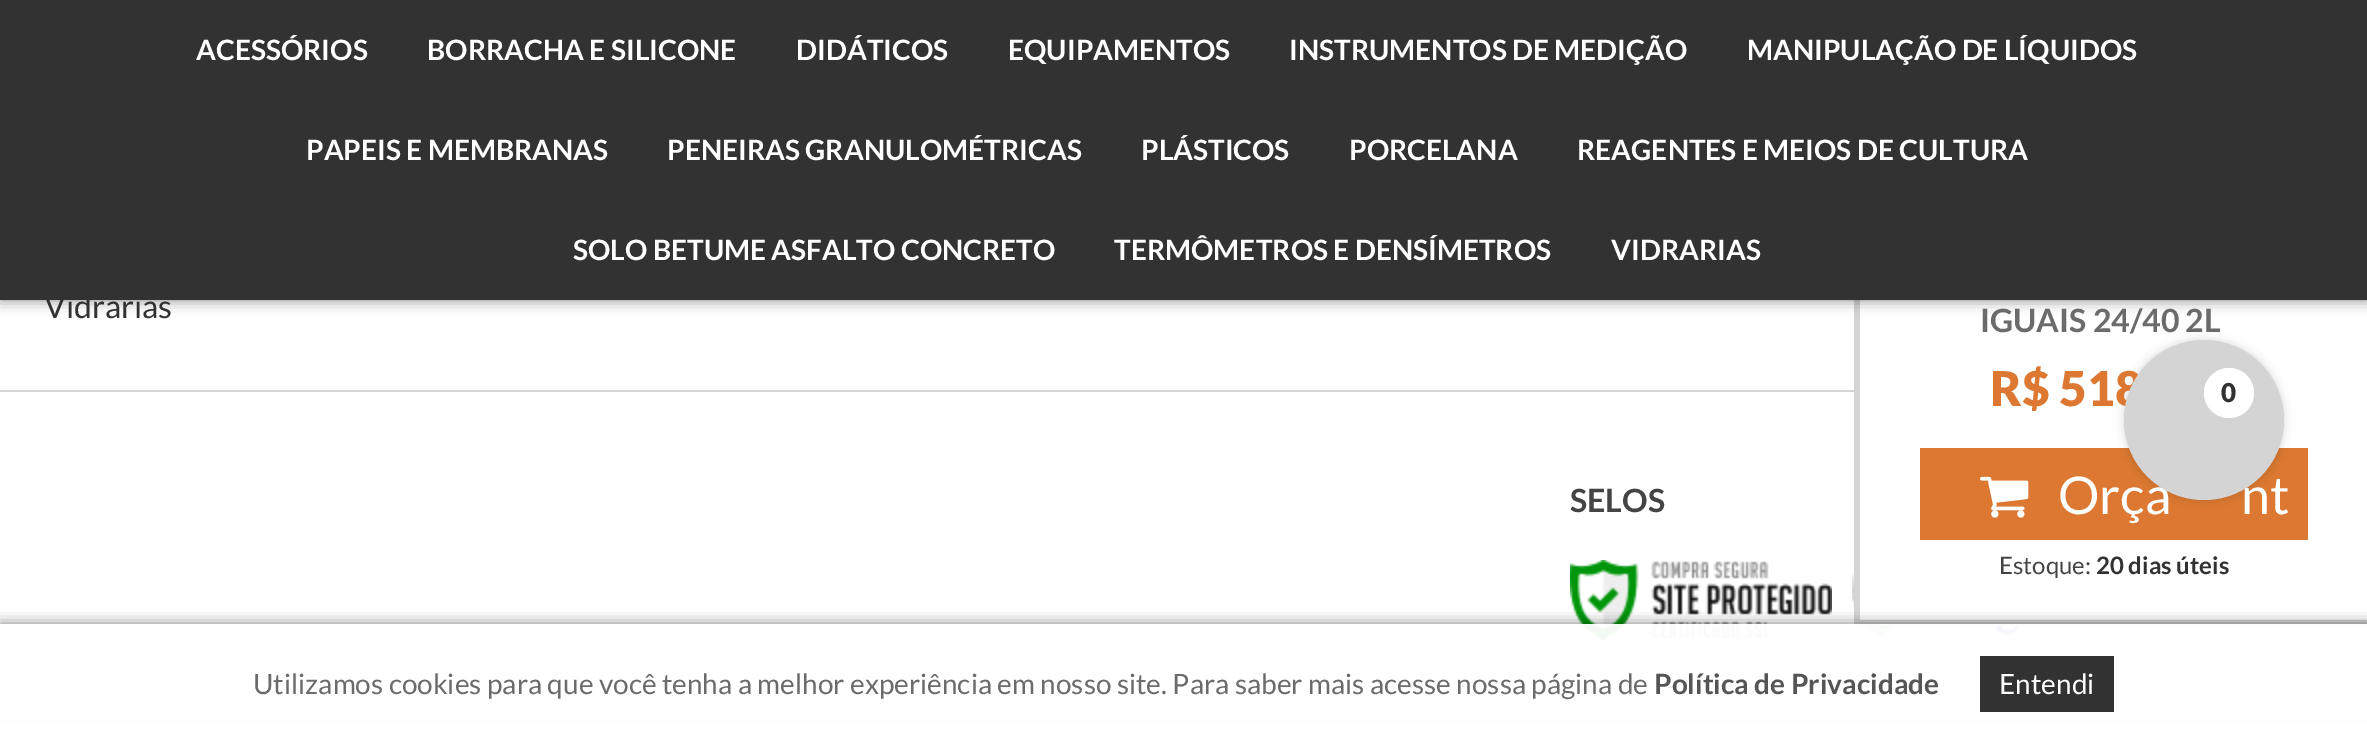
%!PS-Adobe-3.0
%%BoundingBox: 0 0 2367 743
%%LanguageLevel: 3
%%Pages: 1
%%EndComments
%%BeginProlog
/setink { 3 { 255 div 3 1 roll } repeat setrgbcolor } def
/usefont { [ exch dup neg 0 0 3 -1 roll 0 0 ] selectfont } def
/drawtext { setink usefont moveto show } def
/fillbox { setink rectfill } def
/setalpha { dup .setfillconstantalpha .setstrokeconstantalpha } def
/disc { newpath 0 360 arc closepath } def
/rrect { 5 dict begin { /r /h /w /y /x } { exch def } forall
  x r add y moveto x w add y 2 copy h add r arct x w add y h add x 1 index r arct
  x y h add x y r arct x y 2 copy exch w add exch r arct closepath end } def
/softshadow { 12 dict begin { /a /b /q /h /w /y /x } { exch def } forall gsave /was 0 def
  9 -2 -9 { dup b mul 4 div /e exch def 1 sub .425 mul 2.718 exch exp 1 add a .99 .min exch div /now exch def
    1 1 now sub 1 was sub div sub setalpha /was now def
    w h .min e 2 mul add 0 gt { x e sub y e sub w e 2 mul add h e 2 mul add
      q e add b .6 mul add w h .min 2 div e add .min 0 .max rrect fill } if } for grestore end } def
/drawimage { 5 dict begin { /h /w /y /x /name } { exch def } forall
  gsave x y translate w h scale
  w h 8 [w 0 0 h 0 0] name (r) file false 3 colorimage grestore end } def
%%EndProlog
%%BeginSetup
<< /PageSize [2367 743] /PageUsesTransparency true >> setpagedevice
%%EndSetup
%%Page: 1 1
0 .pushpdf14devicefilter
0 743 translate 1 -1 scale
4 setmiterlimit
0 0 2367 743 255 255 255 fillbox
(assets/img2.rgb) 1852 573 168 64 drawimage
1854 620 513 6 212 212 212 fillbox
1854 300 6 326 212 212 212 fillbox
0 0 0 setink
0 0 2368 300 0 7 0.5 softshadow
0 0 2367 300 50 50 50 fillbox
(ACESSÓRIOS) 196 60 /Lato-Bold 28 255 255 255 drawtext
(BORRACHA E SILICONE) 427 60 /Lato-Bold 28 255 255 255 drawtext
(DIDÁTICOS) 796 60 /Lato-Bold 28 255 255 255 drawtext
(EQUIPAMENTOS) 1008 60 /Lato-Bold 28 255 255 255 drawtext
(INSTRUMENTOS DE MEDIÇÃO) 1289 60 /Lato-Bold 28 255 255 255 drawtext
(MANIPULAÇÃO DE LÍQUIDOS) 1747 60 /Lato-Bold 28 255 255 255 drawtext
(PAPEIS E MEMBRANAS) 306 160 /Lato-Bold 28 255 255 255 drawtext
(PENEIRAS GRANULOMÉTRICAS) 667 160 /Lato-Bold 28 255 255 255 drawtext
(PLÁSTICOS) 1141 160 /Lato-Bold 28 255 255 255 drawtext
(PORCELANA) 1349 160 /Lato-Bold 28 255 255 255 drawtext
(REAGENTES E MEIOS DE CULTURA) 1577 160 /Lato-Bold 28 255 255 255 drawtext
(SOLO BETUME ASFALTO CONCRETO) 573 260 /Lato-Bold 28 255 255 255 drawtext
(TERMÔMETROS E DENSÍMETROS) 1114 260 /Lato-Bold 28 255 255 255 drawtext
(VIDRARIAS) 1611 260 /Lato-Bold 28 255 255 255 drawtext
1920 448 388 92 220 120 49 fillbox
0 0 0 setink
2124 340 160 160 80 5 0.15 softshadow
(R$ 518) 1990 406 /Lato-Black 48 220 120 49 drawtext
(Orça) 2058 514 /Lato-Regular 52 255 255 255 drawtext
(nt) 2241 514 /Lato-Regular 52 255 255 255 drawtext
212 212 212 setink
2204 420 80 disc fill
255 255 255 setink
2229 393 25 disc fill
(0) 2221 402 /Lato-Black 26 50 50 50 drawtext
0 390 1854 2 212 212 212 fillbox
(Vidrarias) 44 318 /Lato-Regular 32 50 50 50 drawtext
(SELOS) 1570 512 /Lato-Bold 32 68 68 68 drawtext
(assets/img1.rgb) 1570 560 262 80 drawimage
0 720 2367 2 221 221 221 fillbox
1860 573 160 47 255 255 255 fillbox
(IGUAIS 24/40 2L) 1980 332 /Lato-Bold 32 107 107 107 drawtext
(assets/img3.rgb) 1980 476 49 42 drawimage
(Estoque:) 1999 574 /Lato-Regular 24 68 68 68 drawtext
(20 dias úteis) 2096 574 /Lato-Bold 24 50 50 50 drawtext
gsave
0 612 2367 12 rectclip
0 0 0 setink
0 624 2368 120 0 7 0.5 softshadow
grestore
0.95 setalpha
0 624 2367 98 255 255 255 fillbox
1 setalpha
(Utilizamos cookies para que você tenha a melhor experiência em nosso site. Para saber mais acesse nossa página de) 253 694 /Lato-Regular 28 107 107 107 drawtext
(Política de Privacidade) 1654 694 /Lato-Bold 28 85 85 85 drawtext
1980 656 134 56 50 50 50 fillbox
(Entendi) 1999 694 /Lato-Regular 28 255 255 255 drawtext
.poppdf14devicefilter showpage
%%EOF
